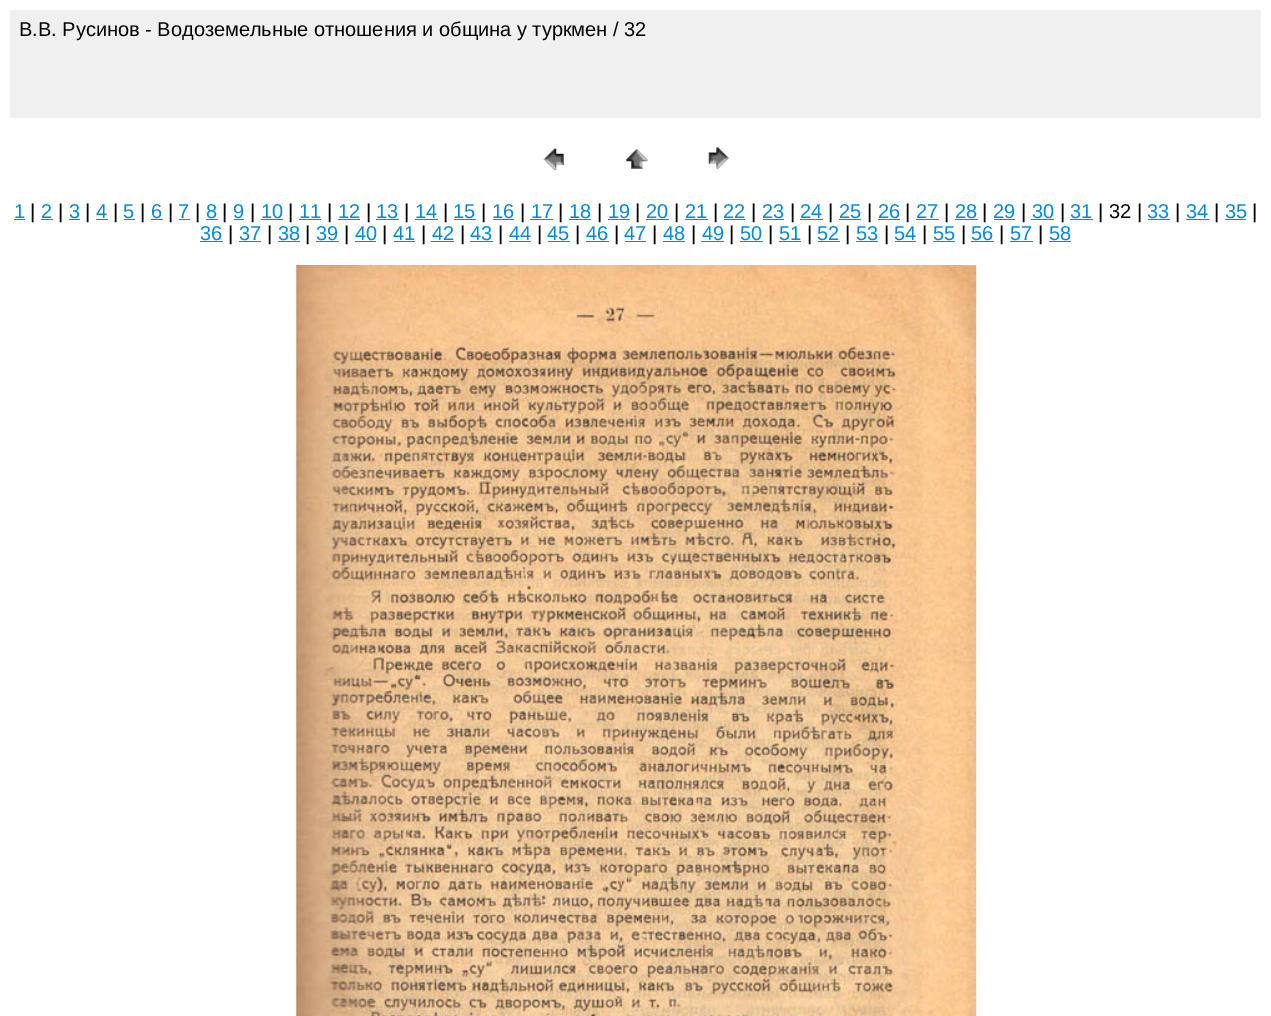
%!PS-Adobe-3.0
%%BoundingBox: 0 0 1271 1016
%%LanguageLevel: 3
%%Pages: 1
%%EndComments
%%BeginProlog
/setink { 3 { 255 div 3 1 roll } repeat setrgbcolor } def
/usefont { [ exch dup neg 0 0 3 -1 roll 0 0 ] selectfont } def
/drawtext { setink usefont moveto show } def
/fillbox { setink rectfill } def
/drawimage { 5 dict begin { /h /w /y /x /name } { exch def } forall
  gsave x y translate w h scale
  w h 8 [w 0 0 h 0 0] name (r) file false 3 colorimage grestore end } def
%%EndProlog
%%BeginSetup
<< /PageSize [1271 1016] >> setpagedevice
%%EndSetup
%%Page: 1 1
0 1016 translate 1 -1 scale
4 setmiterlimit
0 0 1271 1016 255 255 255 fillbox
10 10 1251 108 240 240 240 fillbox
(В.В. Русинов - Водоземельные отношения и община у туркмен / 32) 19 36 /LiberationSans-Regular 20 0 0 0 drawtext
(assets/img1.rgb) 543 148 21 23 drawimage
(assets/img2.rgb) 626 148 22 21 drawimage
(assets/img3.rgb) 708 147 21 22 drawimage
(1) 14 218 /LiberationSans-Regular 20 0 137 225 drawtext
14 219 11 1 0 137 225 fillbox
(|) 30 218 /LiberationSans-Regular 20 0 0 0 drawtext
(2) 41 218 /LiberationSans-Regular 20 0 137 225 drawtext
41 219 12 1 0 137 225 fillbox
(|) 58 218 /LiberationSans-Regular 20 0 0 0 drawtext
(3) 69 218 /LiberationSans-Regular 20 0 137 225 drawtext
69 219 11 1 0 137 225 fillbox
(|) 85 218 /LiberationSans-Regular 20 0 0 0 drawtext
(4) 96 218 /LiberationSans-Regular 20 0 137 225 drawtext
96 219 12 1 0 137 225 fillbox
(|) 113 218 /LiberationSans-Regular 20 0 0 0 drawtext
(5) 123 218 /LiberationSans-Regular 20 0 137 225 drawtext
124 219 11 1 0 137 225 fillbox
(|) 140 218 /LiberationSans-Regular 20 0 0 0 drawtext
(6) 151 218 /LiberationSans-Regular 20 0 137 225 drawtext
151 219 12 1 0 137 225 fillbox
(|) 168 218 /LiberationSans-Regular 20 0 0 0 drawtext
(7) 178 218 /LiberationSans-Regular 20 0 137 225 drawtext
179 219 11 1 0 137 225 fillbox
(|) 195 218 /LiberationSans-Regular 20 0 0 0 drawtext
(8) 206 218 /LiberationSans-Regular 20 0 137 225 drawtext
206 219 12 1 0 137 225 fillbox
(|) 222 218 /LiberationSans-Regular 20 0 0 0 drawtext
(9) 233 218 /LiberationSans-Regular 20 0 137 225 drawtext
234 219 10 1 0 137 225 fillbox
(|) 250 218 /LiberationSans-Regular 20 0 0 0 drawtext
(10) 261 218 /LiberationSans-Regular 20 0 137 225 drawtext
261 219 22 1 0 137 225 fillbox
(|) 288 218 /LiberationSans-Regular 20 0 0 0 drawtext
(11) 299 218 /LiberationSans-Regular 20 0 137 225 drawtext
299 219 22 1 0 137 225 fillbox
(|) 327 218 /LiberationSans-Regular 20 0 0 0 drawtext
(12) 338 218 /LiberationSans-Regular 20 0 137 225 drawtext
338 219 22 1 0 137 225 fillbox
(|) 366 218 /LiberationSans-Regular 20 0 0 0 drawtext
(13) 376 218 /LiberationSans-Regular 20 0 137 225 drawtext
376 219 23 1 0 137 225 fillbox
(|) 404 218 /LiberationSans-Regular 20 0 0 0 drawtext
(14) 415 218 /LiberationSans-Regular 20 0 137 225 drawtext
415 219 23 1 0 137 225 fillbox
(|) 443 218 /LiberationSans-Regular 20 0 0 0 drawtext
(15) 453 218 /LiberationSans-Regular 20 0 137 225 drawtext
454 219 22 1 0 137 225 fillbox
(|) 481 218 /LiberationSans-Regular 20 0 0 0 drawtext
(16) 492 218 /LiberationSans-Regular 20 0 137 225 drawtext
493 219 21 1 0 137 225 fillbox
(|) 520 218 /LiberationSans-Regular 20 0 0 0 drawtext
(17) 531 218 /LiberationSans-Regular 20 0 137 225 drawtext
530 219 23 1 0 137 225 fillbox
(|) 558 218 /LiberationSans-Regular 20 0 0 0 drawtext
(18) 569 218 /LiberationSans-Regular 20 0 137 225 drawtext
569 219 22 1 0 137 225 fillbox
(|) 597 218 /LiberationSans-Regular 20 0 0 0 drawtext
(19) 608 218 /LiberationSans-Regular 20 0 137 225 drawtext
608 219 22 1 0 137 225 fillbox
(|) 635 218 /LiberationSans-Regular 20 0 0 0 drawtext
(20) 646 218 /LiberationSans-Regular 20 0 137 225 drawtext
646 219 23 1 0 137 225 fillbox
(|) 674 218 /LiberationSans-Regular 20 0 0 0 drawtext
(21) 685 218 /LiberationSans-Regular 20 0 137 225 drawtext
685 219 23 1 0 137 225 fillbox
(|) 713 218 /LiberationSans-Regular 20 0 0 0 drawtext
(22) 723 218 /LiberationSans-Regular 20 0 137 225 drawtext
724 219 21 1 0 137 225 fillbox
(|) 751 218 /LiberationSans-Regular 20 0 0 0 drawtext
(23) 762 218 /LiberationSans-Regular 20 0 137 225 drawtext
763 219 21 1 0 137 225 fillbox
(|) 790 218 /LiberationSans-Regular 20 0 0 0 drawtext
(24) 800 218 /LiberationSans-Regular 20 0 137 225 drawtext
800 219 23 1 0 137 225 fillbox
(|) 828 218 /LiberationSans-Regular 20 0 0 0 drawtext
(25) 839 218 /LiberationSans-Regular 20 0 137 225 drawtext
839 219 22 1 0 137 225 fillbox
(|) 867 218 /LiberationSans-Regular 20 0 0 0 drawtext
(26) 878 218 /LiberationSans-Regular 20 0 137 225 drawtext
878 219 22 1 0 137 225 fillbox
(|) 905 218 /LiberationSans-Regular 20 0 0 0 drawtext
(27) 916 218 /LiberationSans-Regular 20 0 137 225 drawtext
916 219 23 1 0 137 225 fillbox
(|) 944 218 /LiberationSans-Regular 20 0 0 0 drawtext
(28) 955 218 /LiberationSans-Regular 20 0 137 225 drawtext
955 219 23 1 0 137 225 fillbox
(|) 982 218 /LiberationSans-Regular 20 0 0 0 drawtext
(29) 993 218 /LiberationSans-Regular 20 0 137 225 drawtext
994 219 21 1 0 137 225 fillbox
(|) 1021 218 /LiberationSans-Regular 20 0 0 0 drawtext
(30) 1032 218 /LiberationSans-Regular 20 0 137 225 drawtext
1031 219 23 1 0 137 225 fillbox
(|) 1060 218 /LiberationSans-Regular 20 0 0 0 drawtext
(31) 1070 218 /LiberationSans-Regular 20 0 137 225 drawtext
1070 219 23 1 0 137 225 fillbox
(| 32 |) 1098 218 /LiberationSans-Regular 20 0 0 0 drawtext
(33) 1147 218 /LiberationSans-Regular 20 0 137 225 drawtext
1148 219 22 1 0 137 225 fillbox
(|) 1175 218 /LiberationSans-Regular 20 0 0 0 drawtext
(34) 1186 218 /LiberationSans-Regular 20 0 137 225 drawtext
1186 219 23 1 0 137 225 fillbox
(|) 1214 218 /LiberationSans-Regular 20 0 0 0 drawtext
(35) 1225 218 /LiberationSans-Regular 20 0 137 225 drawtext
1225 219 21 1 0 137 225 fillbox
(|) 1252 218 /LiberationSans-Regular 20 0 0 0 drawtext
(36) 200 240 /LiberationSans-Regular 20 0 137 225 drawtext
200 241 23 1 0 137 225 fillbox
(|) 228 240 /LiberationSans-Regular 20 0 0 0 drawtext
(37) 239 240 /LiberationSans-Regular 20 0 137 225 drawtext
239 241 22 1 0 137 225 fillbox
(|) 267 240 /LiberationSans-Regular 20 0 0 0 drawtext
(38) 278 240 /LiberationSans-Regular 20 0 137 225 drawtext
278 241 22 1 0 137 225 fillbox
(|) 305 240 /LiberationSans-Regular 20 0 0 0 drawtext
(39) 316 240 /LiberationSans-Regular 20 0 137 225 drawtext
316 241 23 1 0 137 225 fillbox
(|) 344 240 /LiberationSans-Regular 20 0 0 0 drawtext
(40) 355 240 /LiberationSans-Regular 20 0 137 225 drawtext
355 241 21 1 0 137 225 fillbox
(|) 382 240 /LiberationSans-Regular 20 0 0 0 drawtext
(41) 393 240 /LiberationSans-Regular 20 0 137 225 drawtext
394 241 21 1 0 137 225 fillbox
(|) 421 240 /LiberationSans-Regular 20 0 0 0 drawtext
(42) 432 240 /LiberationSans-Regular 20 0 137 225 drawtext
431 241 23 1 0 137 225 fillbox
(|) 460 240 /LiberationSans-Regular 20 0 0 0 drawtext
(43) 470 240 /LiberationSans-Regular 20 0 137 225 drawtext
470 241 23 1 0 137 225 fillbox
(|) 498 240 /LiberationSans-Regular 20 0 0 0 drawtext
(44) 509 240 /LiberationSans-Regular 20 0 137 225 drawtext
509 241 22 1 0 137 225 fillbox
(|) 537 240 /LiberationSans-Regular 20 0 0 0 drawtext
(45) 547 240 /LiberationSans-Regular 20 0 137 225 drawtext
548 241 22 1 0 137 225 fillbox
(|) 575 240 /LiberationSans-Regular 20 0 0 0 drawtext
(46) 586 240 /LiberationSans-Regular 20 0 137 225 drawtext
586 241 23 1 0 137 225 fillbox
(|) 614 240 /LiberationSans-Regular 20 0 0 0 drawtext
(47) 624 240 /LiberationSans-Regular 20 0 137 225 drawtext
625 241 21 1 0 137 225 fillbox
(|) 652 240 /LiberationSans-Regular 20 0 0 0 drawtext
(48) 663 240 /LiberationSans-Regular 20 0 137 225 drawtext
663 241 22 1 0 137 225 fillbox
(|) 691 240 /LiberationSans-Regular 20 0 0 0 drawtext
(49) 702 240 /LiberationSans-Regular 20 0 137 225 drawtext
701 241 23 1 0 137 225 fillbox
(|) 729 240 /LiberationSans-Regular 20 0 0 0 drawtext
(50) 740 240 /LiberationSans-Regular 20 0 137 225 drawtext
740 241 23 1 0 137 225 fillbox
(|) 768 240 /LiberationSans-Regular 20 0 0 0 drawtext
(51) 779 240 /LiberationSans-Regular 20 0 137 225 drawtext
779 241 22 1 0 137 225 fillbox
(|) 807 240 /LiberationSans-Regular 20 0 0 0 drawtext
(52) 817 240 /LiberationSans-Regular 20 0 137 225 drawtext
818 241 22 1 0 137 225 fillbox
(|) 845 240 /LiberationSans-Regular 20 0 0 0 drawtext
(53) 856 240 /LiberationSans-Regular 20 0 137 225 drawtext
856 241 22 1 0 137 225 fillbox
(|) 884 240 /LiberationSans-Regular 20 0 0 0 drawtext
(54) 894 240 /LiberationSans-Regular 20 0 137 225 drawtext
895 241 21 1 0 137 225 fillbox
(|) 922 240 /LiberationSans-Regular 20 0 0 0 drawtext
(55) 933 240 /LiberationSans-Regular 20 0 137 225 drawtext
933 241 22 1 0 137 225 fillbox
(|) 961 240 /LiberationSans-Regular 20 0 0 0 drawtext
(56) 971 240 /LiberationSans-Regular 20 0 137 225 drawtext
971 241 23 1 0 137 225 fillbox
(|) 999 240 /LiberationSans-Regular 20 0 0 0 drawtext
(57) 1010 240 /LiberationSans-Regular 20 0 137 225 drawtext
1010 241 23 1 0 137 225 fillbox
(|) 1038 240 /LiberationSans-Regular 20 0 0 0 drawtext
(58) 1049 240 /LiberationSans-Regular 20 0 137 225 drawtext
1049 241 22 1 0 137 225 fillbox
(assets/img4.rgb) 296 265 681 751 drawimage
showpage
%%EOF
